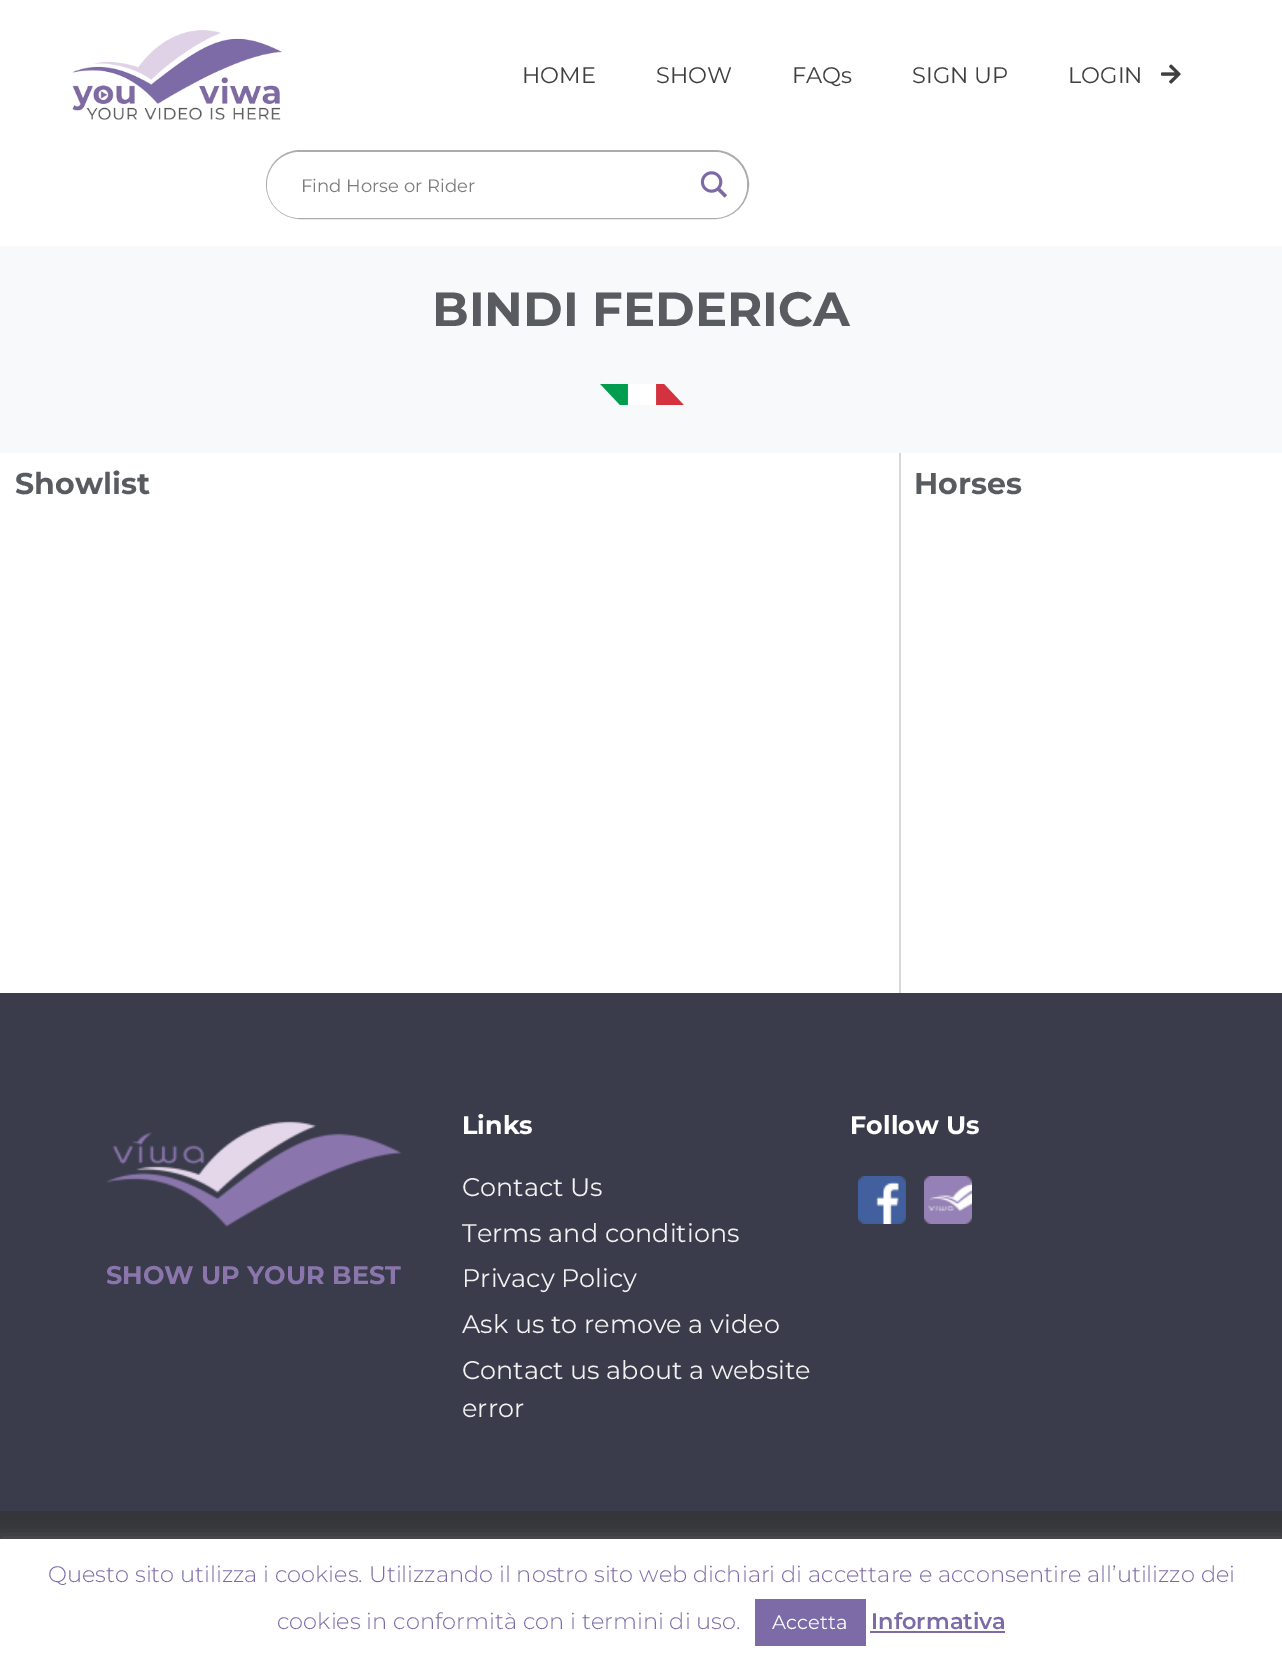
%!PS-Adobe-3.0
%%BoundingBox: 0 0 1282 1663
%%LanguageLevel: 3
%%Pages: 1
%%EndComments
%%BeginProlog
/setink { 3 { 255 div 3 1 roll } repeat setrgbcolor } def
/usefont { [ exch dup neg 0 0 3 -1 roll 0 0 ] selectfont } def
/drawtext { setink usefont moveto show } def
/fillbox { setink rectfill } def
/setalpha { dup .setfillconstantalpha .setstrokeconstantalpha } def
/rrect { 5 dict begin { /r /h /w /y /x } { exch def } forall
  x r add y moveto x w add y 2 copy h add r arct x w add y h add x 1 index r arct
  x y h add x y r arct x y 2 copy exch w add exch r arct closepath end } def
/softshadow { 12 dict begin { /a /b /q /h /w /y /x } { exch def } forall gsave /was 0 def
  9 -2 -9 { dup b mul 4 div /e exch def 1 sub .425 mul 2.718 exch exp 1 add a .99 .min exch div /now exch def
    1 1 now sub 1 was sub div sub setalpha /was now def
    w h .min e 2 mul add 0 gt { x e sub y e sub w e 2 mul add h e 2 mul add
      q e add b .6 mul add w h .min 2 div e add .min 0 .max rrect fill } if } for grestore end } def
/drawimage { 5 dict begin { /h /w /y /x /name } { exch def } forall
  gsave x y translate w h scale
  w h 8 [w 0 0 h 0 0] name (r) file false 3 colorimage grestore end } def
%%EndProlog
%%BeginSetup
<< /PageSize [1282 1663] /PageUsesTransparency true >> setpagedevice
%%EndSetup
%%Page: 1 1
0 .pushpdf14devicefilter
0 1663 translate 1 -1 scale
4 setmiterlimit
0 0 1282 1663 255 255 255 fillbox
(assets/img1.rgb) 72 30 210 90 drawimage
(HOME) 522 83 /Montserrat-Regular 22.5 63 63 63 drawtext
(SHOW) 656 83 /Montserrat-Regular 22.5 63 63 63 drawtext
(FAQs) 792 83 /Montserrat-Regular 22.5 63 63 63 drawtext
(SIGN UP) 912 83 /Montserrat-Regular 22.5 63 63 63 drawtext
(LOGIN) 1068 83 /Montserrat-Regular 22.5 63 63 63 drawtext
(assets/img2.rgb) 1161 64 20 20 drawimage
171 172 174 setink
2 setlinewidth
267 151 481 67 33.5 rrect stroke
255 255 255 setink
267 152 480 66 33 rrect fill
(Find Horse or Rider) 301 192 /Montserrat-Regular 18 125 125 125 drawtext
(assets/img3.rgb) 700 171 28 27 drawimage
0 246 1282 207 248 249 251 fillbox
(BINDI FEDERICA) 432 326 /Montserrat-Bold 48 88 91 96 drawtext
(assets/img4.rgb) 600 384 84 21 drawimage
(Showlist) 15 494 /Montserrat-Bold 30 88 91 96 drawtext
899 453 2 540 216 216 216 fillbox
(Horses) 914 494 /Montserrat-Bold 30 88 91 96 drawtext
0 993 1282 518 58 60 75 fillbox
(Links) 462 1134 /Montserrat-Bold 25.5 255 255 255 drawtext
(Contact Us) 462 1196 /Montserrat-Regular 25.5 241 241 241 drawtext
(Terms and conditions) 462 1242 /Montserrat-Regular 25.5 241 241 241 drawtext
(Privacy Policy) 462 1287 /Montserrat-Regular 25.5 241 241 241 drawtext
(Ask us to remove a video) 462 1333 /Montserrat-Regular 25.5 241 241 241 drawtext
(Contact us about a website) 462 1379 /Montserrat-Regular 25.5 241 241 241 drawtext
(error) 462 1417 /Montserrat-Regular 25.5 241 241 241 drawtext
(Follow Us) 850 1134 /Montserrat-Bold 25.5 255 255 255 drawtext
(assets/img5.rgb) 858 1176 48 48 drawimage
(assets/img6.rgb) 924 1176 48 48 drawimage
(assets/img7.rgb) 106 1121 296 106 drawimage
(SHOW UP YOUR BEST) 106 1284 /Montserrat-Bold 25.5 138 118 172 drawtext
0 1511 1282 28 52 54 58 fillbox
172 171 171 setink
0 1538 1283 124 0 7.5 0.3 softshadow
0 1539 1282 124 255 255 255 fillbox
(Questo sito utilizza i cookies. Utilizzando il nostro sito web dichiari di accettare e acconsentire all’utilizzo dei) 48 1582 /Montserrat-Light 22.5 124 107 167 drawtext
(cookies in conformità con i termini di uso.) 277 1629 /Montserrat-Light 22.5 124 107 167 drawtext
755 1599 111 47 124 107 167 fillbox
(Accetta) 772 1629 /Montserrat-Regular 19.5 255 255 255 drawtext
(Informativa) 871 1629 /Montserrat-SemiBold 22.5 124 107 167 drawtext
870 1631 135 2 124 107 167 fillbox
.poppdf14devicefilter showpage
%%EOF
